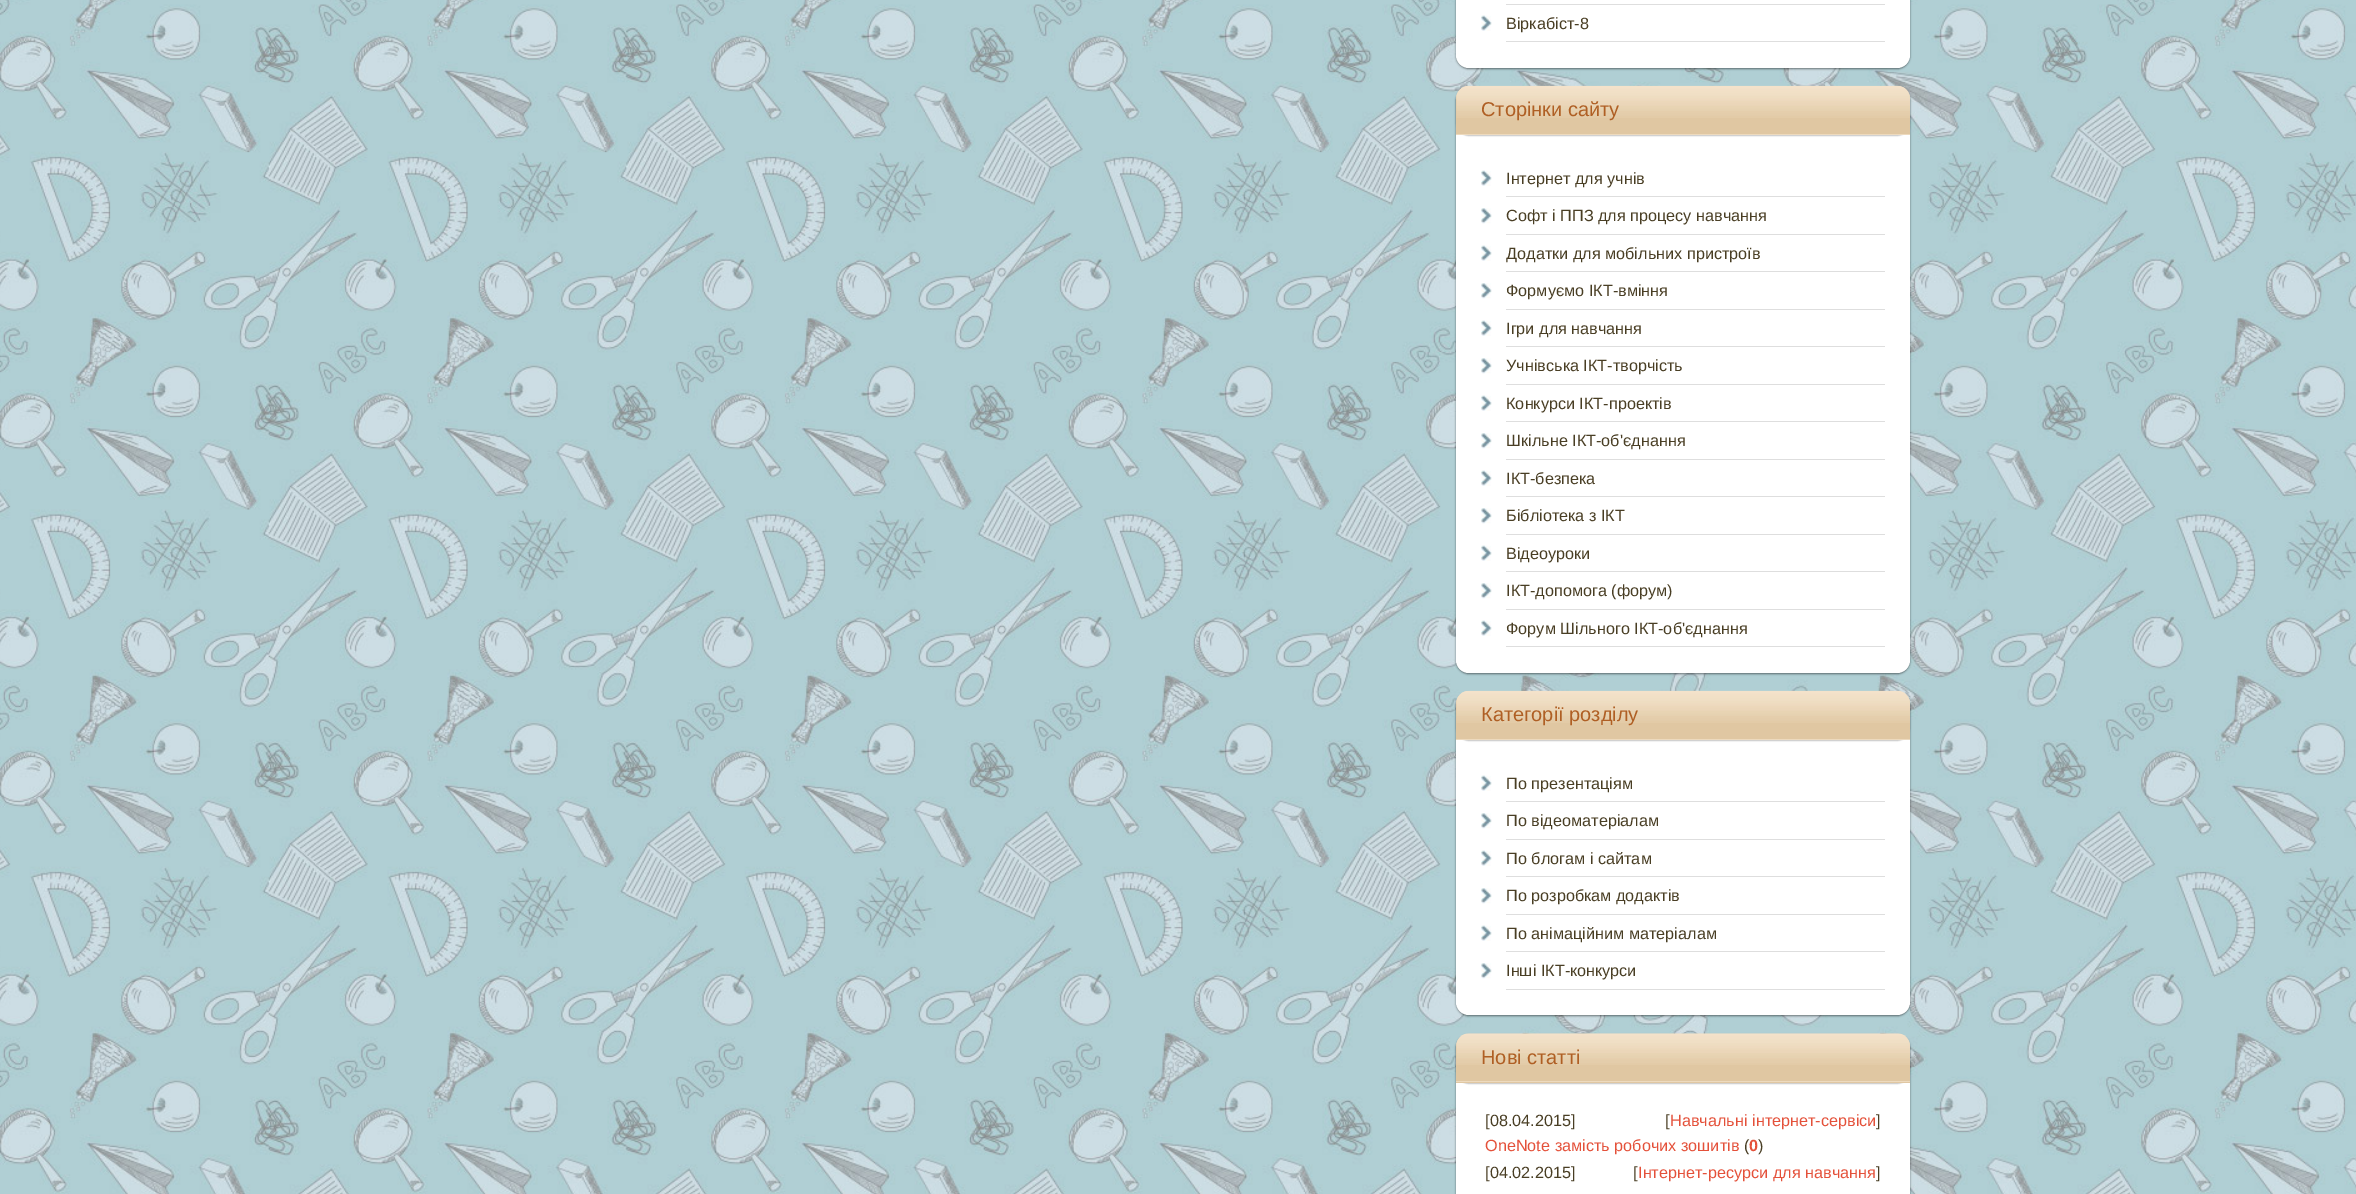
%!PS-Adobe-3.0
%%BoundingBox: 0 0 2356 1194
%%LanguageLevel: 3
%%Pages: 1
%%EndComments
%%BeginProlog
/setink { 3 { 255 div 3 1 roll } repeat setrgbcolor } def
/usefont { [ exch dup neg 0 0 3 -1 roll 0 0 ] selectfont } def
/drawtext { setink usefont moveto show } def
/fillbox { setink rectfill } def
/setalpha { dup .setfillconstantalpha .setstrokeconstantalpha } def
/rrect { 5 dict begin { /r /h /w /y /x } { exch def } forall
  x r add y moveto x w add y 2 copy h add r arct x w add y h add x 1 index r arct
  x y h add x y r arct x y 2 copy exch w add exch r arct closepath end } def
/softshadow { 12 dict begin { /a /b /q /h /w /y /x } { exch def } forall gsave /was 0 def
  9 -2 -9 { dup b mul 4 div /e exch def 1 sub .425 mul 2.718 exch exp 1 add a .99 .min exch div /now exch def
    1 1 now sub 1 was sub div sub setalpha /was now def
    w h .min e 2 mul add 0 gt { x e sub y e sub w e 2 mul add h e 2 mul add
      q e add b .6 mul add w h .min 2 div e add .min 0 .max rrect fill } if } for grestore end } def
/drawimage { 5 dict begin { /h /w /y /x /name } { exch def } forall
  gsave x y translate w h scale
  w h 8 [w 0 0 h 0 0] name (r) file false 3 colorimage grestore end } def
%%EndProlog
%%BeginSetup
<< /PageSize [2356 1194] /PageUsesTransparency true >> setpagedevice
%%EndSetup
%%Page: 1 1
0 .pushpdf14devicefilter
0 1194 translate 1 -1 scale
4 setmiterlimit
0 0 2356 1194 255 255 255 fillbox
(assets/img1.rgb) 0 0 2356 1194 drawimage
0 0 0 setink
1456 -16 454 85 13 1 0.5 softshadow
255 255 255 setink
1456 -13 454 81 13 rrect fill
1506 4 379 1 222 222 222 fillbox
(assets/img2.rgb) 1481 15 11 16 drawimage
1506 41 379 1 222 222 222 fillbox
(Віркабіст-8) 1506 29 /LiberationSans-Regular 16.25 73 62 36 drawtext
0 0 0 setink
1456 88 454 586 13 1 0.5 softshadow
255 255 255 setink
1456 86 454 587 13 rrect fill
0 0 0 setink
1456 88 454 48 13 0.5 0.2 softshadow
224 199 162 setink
1469 86 moveto 1897 86 lineto 1904 86 1910 92 1910 99 curveto 1910 135 lineto 1456 135 lineto 1456 99 lineto 1456 92 1462 86 1469 86 curveto closepath fill
(assets/img3.rgb) 1456 85 454 33 drawimage
1456 134 454 1 237 218 190 fillbox
(Сторінки сайту) 1481 116 /LiberationSans-Regular 20 175 95 36 drawtext
(assets/img2.rgb) 1481 170 11 16 drawimage
1506 196 379 1 222 222 222 fillbox
(Інтернет для учнів) 1506 184 /LiberationSans-Regular 16.25 73 62 36 drawtext
(assets/img4.rgb) 1481 208 11 16 drawimage
1506 234 379 1 222 222 222 fillbox
(Софт і ППЗ для процесу навчання) 1506 221 /LiberationSans-Regular 16.25 73 62 36 drawtext
(assets/img2.rgb) 1481 245 11 16 drawimage
1506 271 379 1 222 222 222 fillbox
(Додатки для мобільних пристроїв) 1506 259 /LiberationSans-Regular 16.25 73 62 36 drawtext
(assets/img4.rgb) 1481 283 11 16 drawimage
1506 309 379 1 222 222 222 fillbox
(Формуємо ІКТ-вміння) 1506 296 /LiberationSans-Regular 16.25 73 62 36 drawtext
(assets/img2.rgb) 1481 320 11 16 drawimage
1506 346 379 1 222 222 222 fillbox
(Ігри для навчання) 1506 334 /LiberationSans-Regular 16.25 73 62 36 drawtext
(assets/img4.rgb) 1481 358 11 16 drawimage
1506 384 379 1 222 222 222 fillbox
(Учнівська ІКТ-творчість) 1506 371 /LiberationSans-Regular 16.25 73 62 36 drawtext
(assets/img2.rgb) 1481 395 11 16 drawimage
1506 421 379 1 222 222 222 fillbox
(Конкурси ІКТ-проектів) 1506 409 /LiberationSans-Regular 16.25 73 62 36 drawtext
(assets/img4.rgb) 1481 433 11 16 drawimage
1506 459 379 1 222 222 222 fillbox
(Шкільне ІКТ-об'єднання) 1506 446 /LiberationSans-Regular 16.25 73 62 36 drawtext
(assets/img2.rgb) 1481 470 11 16 drawimage
1506 496 379 1 222 222 222 fillbox
(ІКТ-безпека) 1506 484 /LiberationSans-Regular 16.25 73 62 36 drawtext
(assets/img4.rgb) 1481 508 11 16 drawimage
1506 534 379 1 222 222 222 fillbox
(Бібліотека з ІКТ) 1506 521 /LiberationSans-Regular 16.25 73 62 36 drawtext
(assets/img2.rgb) 1481 545 11 16 drawimage
1506 571 379 1 222 222 222 fillbox
(Відеоуроки) 1506 559 /LiberationSans-Regular 16.25 73 62 36 drawtext
(assets/img4.rgb) 1481 583 11 16 drawimage
1506 609 379 1 222 222 222 fillbox
(ІКТ-допомога \(форум\)) 1506 596 /LiberationSans-Regular 16.25 73 62 36 drawtext
(assets/img2.rgb) 1481 620 11 16 drawimage
1506 646 379 1 222 222 222 fillbox
(Форум Шільного ІКТ-об'єднання) 1506 634 /LiberationSans-Regular 16.25 73 62 36 drawtext
0 0 0 setink
1456 693 454 323 13 1 0.5 softshadow
255 255 255 setink
1456 691 454 324 13 rrect fill
0 0 0 setink
1456 693 454 48 13 0.5 0.2 softshadow
224 199 162 setink
1469 691 moveto 1897 691 lineto 1904 691 1910 697 1910 704 curveto 1910 740 lineto 1456 740 lineto 1456 704 lineto 1456 697 1462 691 1469 691 curveto closepath fill
(assets/img5.rgb) 1456 690 454 33 drawimage
1456 739 454 1 237 218 190 fillbox
(Категорії розділу) 1481 721 /LiberationSans-Regular 20 175 95 36 drawtext
(assets/img2.rgb) 1481 775 11 16 drawimage
1506 801 379 1 222 222 222 fillbox
(По презентаціям) 1506 789 /LiberationSans-Regular 16.25 73 62 36 drawtext
(assets/img4.rgb) 1481 813 11 16 drawimage
1506 839 379 1 222 222 222 fillbox
(По відеоматеріалам) 1506 826 /LiberationSans-Regular 16.25 73 62 36 drawtext
(assets/img2.rgb) 1481 850 11 16 drawimage
1506 876 379 1 222 222 222 fillbox
(По блогам і сайтам) 1506 864 /LiberationSans-Regular 16.25 73 62 36 drawtext
(assets/img4.rgb) 1481 888 11 16 drawimage
1506 914 379 1 222 222 222 fillbox
(По розробкам додактів) 1506 901 /LiberationSans-Regular 16.25 73 62 36 drawtext
(assets/img2.rgb) 1481 925 11 16 drawimage
1506 951 379 1 222 222 222 fillbox
(По анімаційним матеріалам) 1506 939 /LiberationSans-Regular 16.25 73 62 36 drawtext
(assets/img4.rgb) 1481 963 11 16 drawimage
1506 989 379 1 222 222 222 fillbox
(Інші ІКТ-конкурси) 1506 976 /LiberationSans-Regular 16.25 73 62 36 drawtext
0 0 0 setink
1456 1035 454 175 13 1 0.5 softshadow
255 255 255 setink
1456 1034 454 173 13 rrect fill
0 0 0 setink
1456 1035 454 49 13 0.5 0.2 softshadow
224 199 162 setink
1469 1034 moveto 1897 1034 lineto 1904 1034 1910 1040 1910 1047 curveto 1910 1083 lineto 1456 1083 lineto 1456 1047 lineto 1456 1040 1462 1034 1469 1034 curveto closepath fill
(assets/img6.rgb) 1456 1033 454 32 drawimage
1456 1081 454 1 237 218 190 fillbox
(Нові статті) 1481 1064 /LiberationSans-Regular 20 175 95 36 drawtext
([08.04.2015]) 1485 1126 /LiberationSans-Regular 16.25 73 62 36 drawtext
([) 1665 1126 /LiberationSans-Regular 16.25 73 62 36 drawtext
(Навчальні інтернет-сервіси) 1670 1126 /LiberationSans-Regular 16.25 228 81 58 drawtext
(]) 1876 1126 /LiberationSans-Regular 16.25 73 62 36 drawtext
(OneNote замість робочих зошитів) 1485 1151 /LiberationSans-Regular 16.25 228 81 58 drawtext
(\() 1744 1151 /LiberationSans-Regular 16.25 73 62 36 drawtext
(0) 1749 1151 /LiberationSans-Bold 16.25 228 81 58 drawtext
(\)) 1758 1151 /LiberationSans-Regular 16.25 73 62 36 drawtext
([04.02.2015]) 1485 1178 /LiberationSans-Regular 16.25 73 62 36 drawtext
([) 1633 1178 /LiberationSans-Regular 16.25 73 62 36 drawtext
(Інтернет-ресурси для навчання) 1638 1178 /LiberationSans-Regular 16.25 228 81 58 drawtext
(]) 1876 1178 /LiberationSans-Regular 16.25 73 62 36 drawtext
.poppdf14devicefilter showpage
%%EOF
